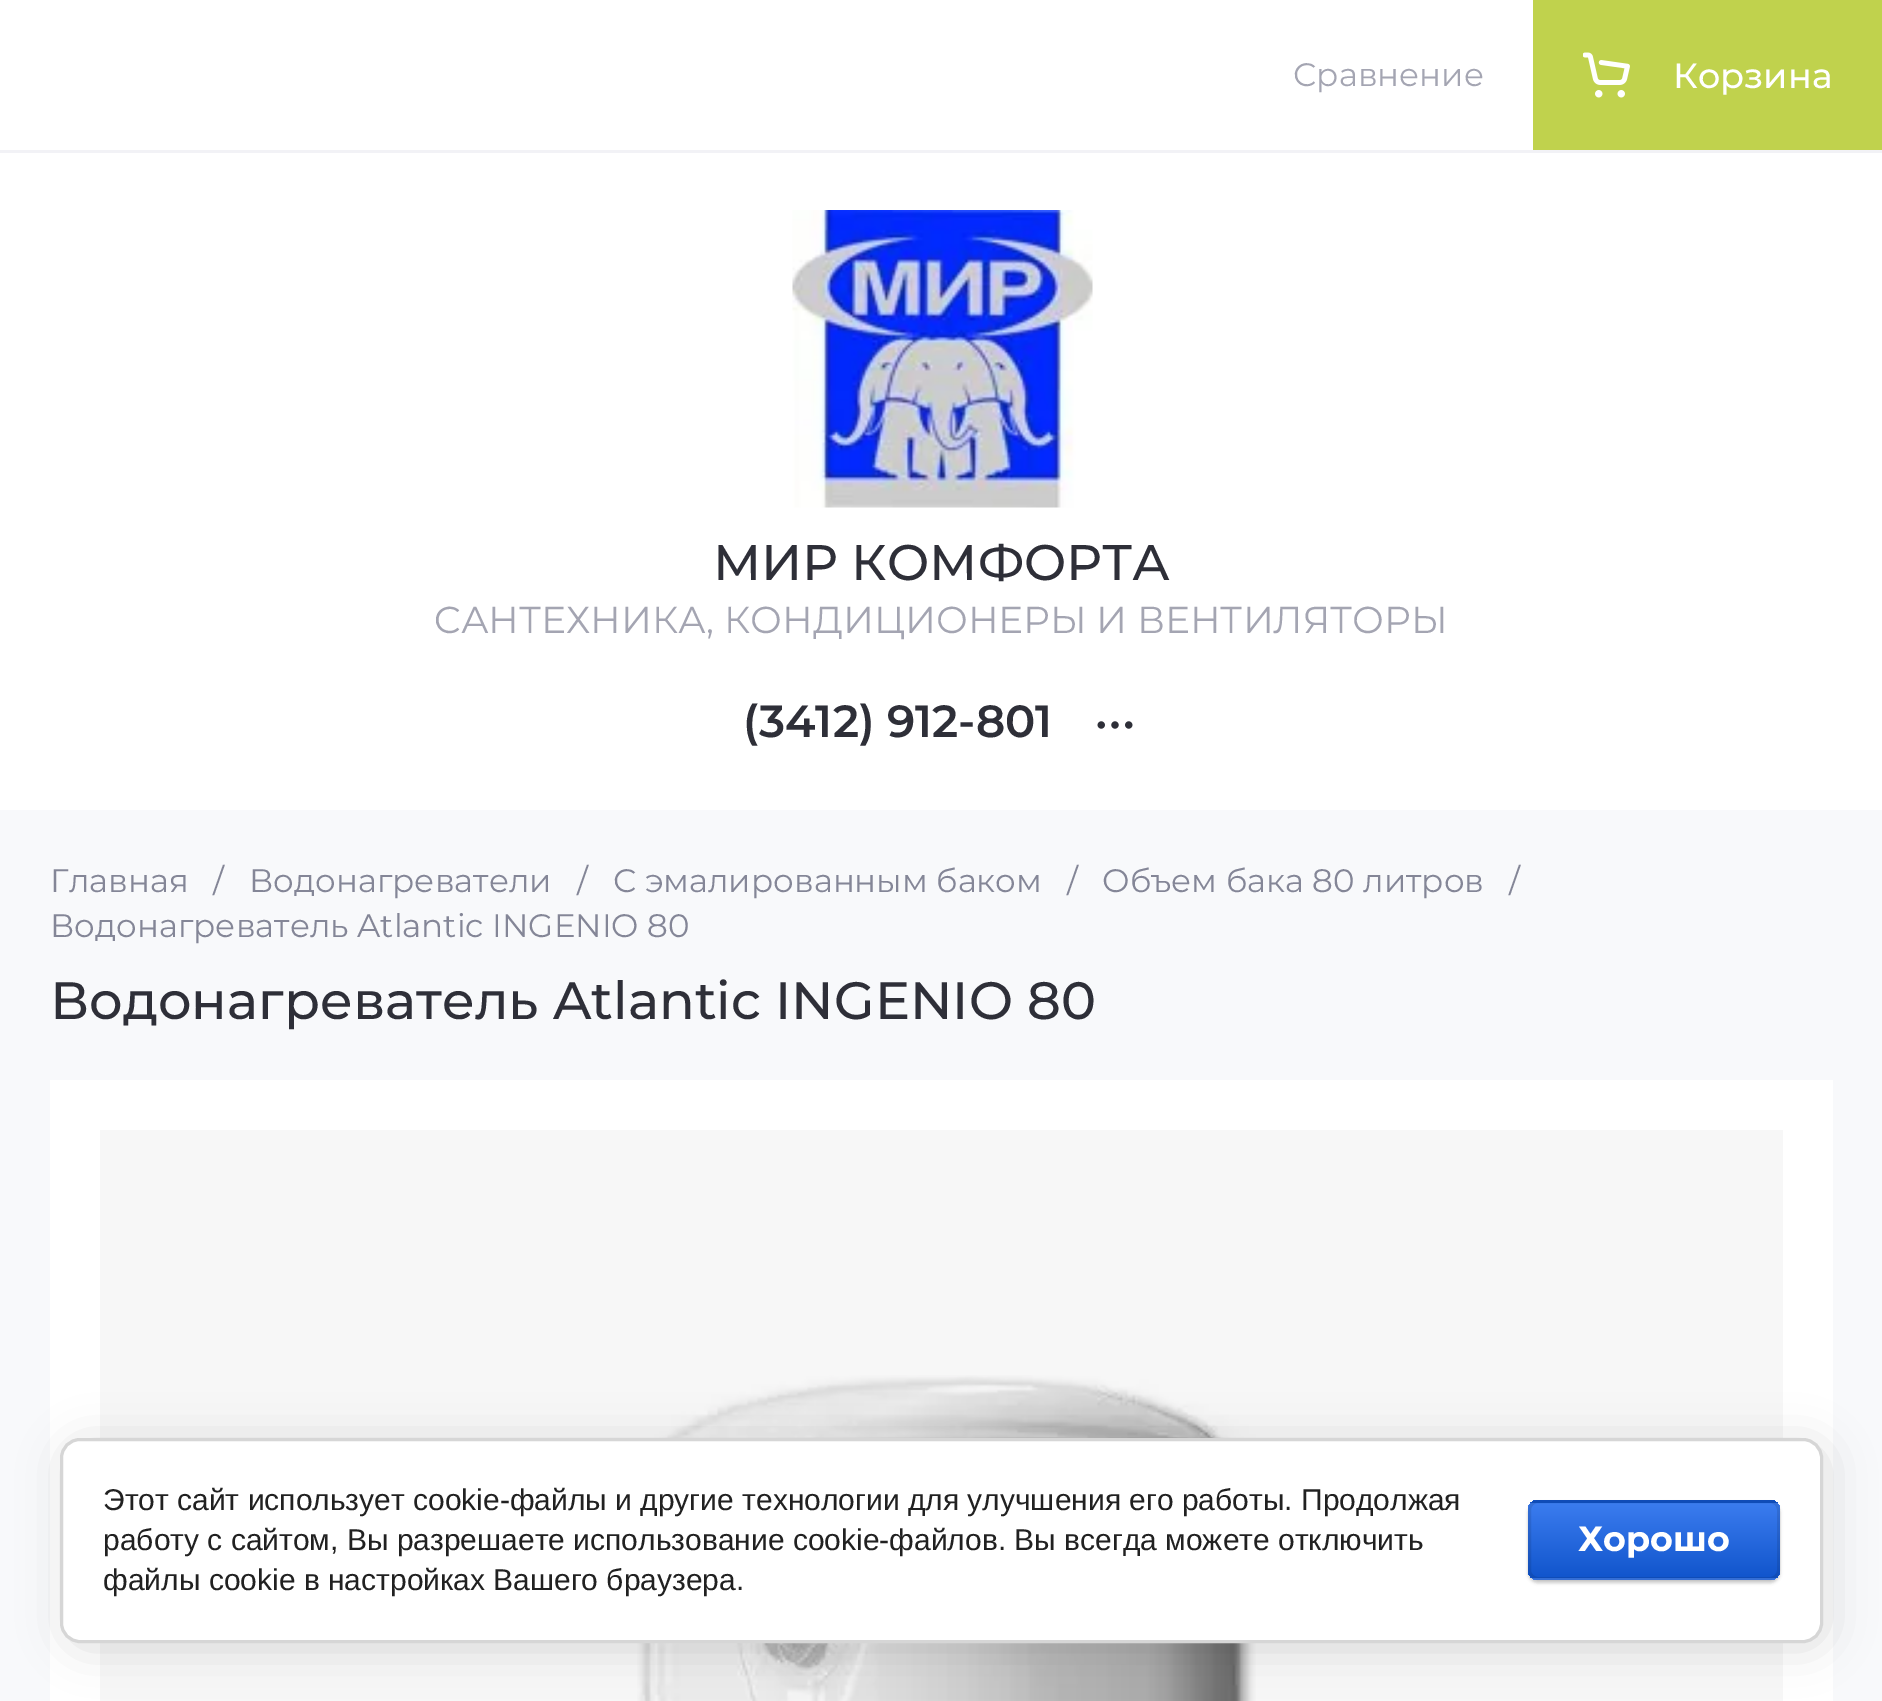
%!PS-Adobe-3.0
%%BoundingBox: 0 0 1882 1701
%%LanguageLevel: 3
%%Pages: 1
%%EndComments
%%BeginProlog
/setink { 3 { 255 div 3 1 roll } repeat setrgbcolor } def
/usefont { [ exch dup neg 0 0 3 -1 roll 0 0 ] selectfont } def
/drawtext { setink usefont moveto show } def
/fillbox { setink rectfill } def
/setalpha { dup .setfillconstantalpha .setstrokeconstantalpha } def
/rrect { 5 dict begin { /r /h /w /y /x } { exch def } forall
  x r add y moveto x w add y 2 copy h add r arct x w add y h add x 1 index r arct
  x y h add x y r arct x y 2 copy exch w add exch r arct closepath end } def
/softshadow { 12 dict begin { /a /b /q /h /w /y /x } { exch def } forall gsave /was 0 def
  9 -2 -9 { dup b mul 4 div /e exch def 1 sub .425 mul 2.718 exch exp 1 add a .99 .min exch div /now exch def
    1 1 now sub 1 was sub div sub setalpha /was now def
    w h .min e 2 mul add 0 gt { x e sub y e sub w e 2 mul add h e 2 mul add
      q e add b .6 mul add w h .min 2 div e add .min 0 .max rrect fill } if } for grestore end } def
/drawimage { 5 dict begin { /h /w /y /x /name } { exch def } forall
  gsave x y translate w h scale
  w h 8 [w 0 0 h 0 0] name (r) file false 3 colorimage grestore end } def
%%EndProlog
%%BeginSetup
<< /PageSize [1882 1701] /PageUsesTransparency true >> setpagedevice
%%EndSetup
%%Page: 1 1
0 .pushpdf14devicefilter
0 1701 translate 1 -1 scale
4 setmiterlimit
0 0 1882 1701 255 255 255 fillbox
(Сравнение) 1293 86 /Montserrat-Regular 32.5 164 165 178 drawtext
1533 0 349 150 192 210 77 fillbox
(assets/img1.rgb) 1583 52 47 46 drawimage
(Корзина) 1673 88 /Montserrat-Medium 35 255 255 255 drawtext
0 150 1882 3 242 242 246 fillbox
(assets/img2.rgb) 792 210 301 298 drawimage
(МИР КОМФОРТА) 713 580 /Montserrat-Medium 50 46 47 56 drawtext
(CАНТЕХНИКА, КОНДИЦИОНЕРЫ И ВЕНТИЛЯТОРЫ) 434 633 /Montserrat-Regular 37.5 164 165 178 drawtext
(\(3412\) 912-801) 743 737 /Montserrat-SemiBold 45 46 47 56 drawtext
(assets/img3.rgb) 1097 721 36 8 drawimage
0 810 1882 891 248 249 251 fillbox
(Главная) 50 892 /Montserrat-Regular 32.5 132 134 151 drawtext
(/) 213 892 /Montserrat-Regular 32.5 132 134 151 drawtext
(Водонагреватели) 249 892 /Montserrat-Regular 32.5 132 134 151 drawtext
(/) 577 892 /Montserrat-Regular 32.5 132 134 151 drawtext
(С эмалированным баком) 613 892 /Montserrat-Regular 32.5 132 134 151 drawtext
(/) 1067 892 /Montserrat-Regular 32.5 132 134 151 drawtext
(Объем бака 80 литров) 1102 892 /Montserrat-Regular 32.5 132 134 151 drawtext
(/) 1509 892 /Montserrat-Regular 32.5 132 134 151 drawtext
(Водонагреватель Atlantic INGENIO 80) 50 937 /Montserrat-Regular 32.5 132 134 151 drawtext
(Водонагреватель Atlantic INGENIO 80) 50 1019 /Montserrat-Medium 52.5 46 47 56 drawtext
50 1080 1783 621 255 255 255 fillbox
100 1130 1683 571 247 247 247 fillbox
(assets/img4.rgb) 637 1375 619 326 drawimage
0 0 0 setink
65 1443 1763 205 20 22.5 0.14 softshadow
255 255 255 setink
61.5 1439.5 1760 202 18.5 rrect gsave fill grestore
214 214 214 setink
3 setlinewidth
stroke
(Этот сайт использует cookie-файлы и другие технологии для улучшения его работы. Продолжая) 103 1510 /LiberationSans-Regular 30 33 33 33 drawtext
(работу с сайтом, Вы разрешаете использование cookie-файлов. Вы всегда можете отключить) 103 1550 /LiberationSans-Regular 30 33 33 33 drawtext
(файлы cookie в настройках Вашего браузера.) 103 1590 /LiberationSans-Regular 30 33 33 33 drawtext
0 0 0 setink
1528 1503 252 80 10 1.5 0.2 softshadow
gsave
1528 1500 252 80 10 rrect clip newpath
gsave 1528 1500 moveto 1780 1500 lineto 1780 1503 lineto 1528 1503 lineto closepath clip newpath
<< /ShadingType 2 /ColorSpace /DeviceRGB /Coords [1654 1428 1654 1503] /Extend [true true] /Function << /FunctionType 2 /Domain [0 1] /C0 [0.231 0.486 0.937] /C1 [0.067 0.333 0.8] /N 1 >> >> shfill grestore
gsave 1528 1503 moveto 1780 1503 lineto 1780 1578 lineto 1528 1578 lineto closepath clip newpath
<< /ShadingType 2 /ColorSpace /DeviceRGB /Coords [1654 1503 1654 1578] /Extend [true true] /Function << /FunctionType 2 /Domain [0 1] /C0 [0.231 0.486 0.937] /C1 [0.067 0.333 0.8] /N 1 >> >> shfill grestore
gsave 1528 1578 moveto 1780 1578 lineto 1780 1580 lineto 1528 1580 lineto closepath clip newpath
<< /ShadingType 2 /ColorSpace /DeviceRGB /Coords [1654 1578 1654 1653] /Extend [true true] /Function << /FunctionType 2 /Domain [0 1] /C0 [0.231 0.486 0.937] /C1 [0.067 0.333 0.8] /N 1 >> >> shfill grestore
grestore
0.1 setalpha
1529.5 1501.5 249 77 8.5 rrect stroke
1 setalpha
(Хорошо) 1578 1551 /Montserrat-Bold 35 255 255 255 drawtext
.poppdf14devicefilter showpage
%%EOF
